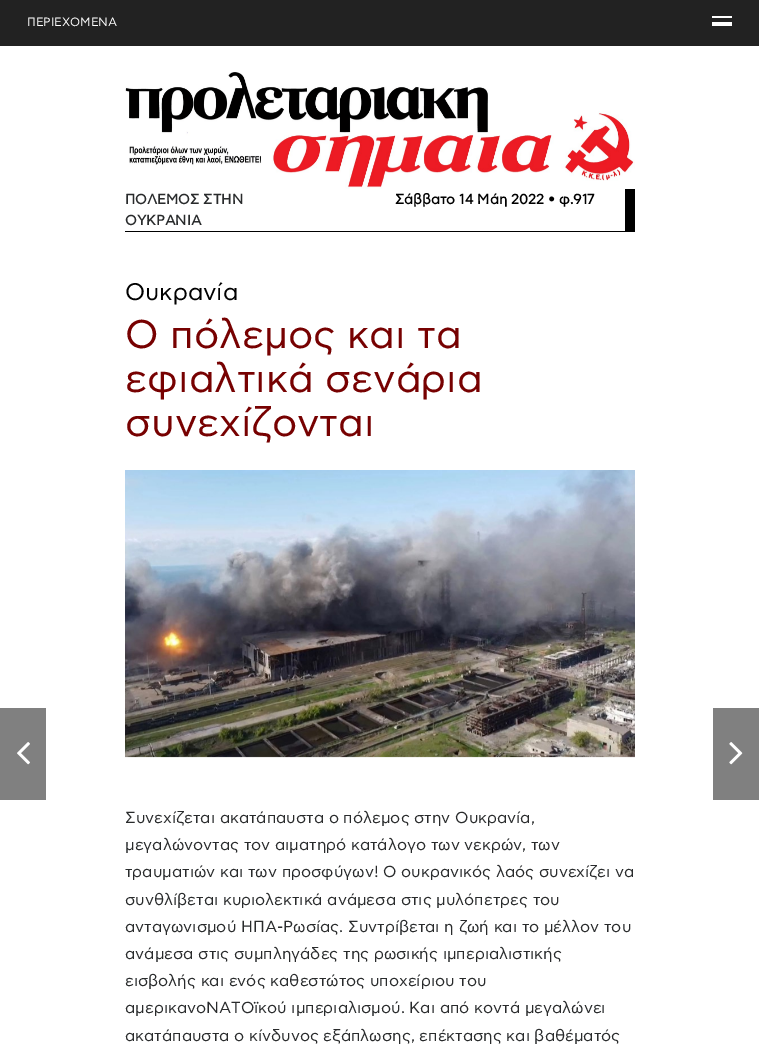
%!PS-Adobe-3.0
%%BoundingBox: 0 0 759 1050
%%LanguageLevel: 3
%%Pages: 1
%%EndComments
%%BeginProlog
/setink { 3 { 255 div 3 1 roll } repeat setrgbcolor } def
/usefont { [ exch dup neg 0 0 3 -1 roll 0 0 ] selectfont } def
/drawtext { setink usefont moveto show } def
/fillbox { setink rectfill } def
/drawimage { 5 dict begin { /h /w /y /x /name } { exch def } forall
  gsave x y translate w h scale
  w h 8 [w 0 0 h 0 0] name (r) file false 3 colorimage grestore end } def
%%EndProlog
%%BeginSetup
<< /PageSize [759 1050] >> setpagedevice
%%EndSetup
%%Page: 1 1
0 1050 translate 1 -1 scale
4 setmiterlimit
0 0 759 1050 255 255 255 fillbox
0 0 759 46 34 34 34 fillbox
(ΠΕΡΙΕΧΟΜΕΝΑ) 27 26 /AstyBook-Regular 12 255 255 255 drawtext
712 16 20 2 255 255 255 fillbox
712 22 20 4 255 255 255 fillbox
0 708 46 92 128 128 128 fillbox
(assets/img1.rgb) 17 742 13 23 drawimage
(assets/img2.rgb) 125 72 510 117 drawimage
625 189 10 42 0 0 0 fillbox
125 231 510 1 0 0 0 fillbox
(ΠΟΛΕΜΟΣ ΣΤΗΝ) 125 204 /AstyBook-Bold 14 41 43 44 drawtext
(ΟΥΚΡΑΝΙΑ) 125 225 /AstyBook-Bold 14 41 43 44 drawtext
(Σάββατο 14 Μάη 2022 • φ.917) 395 204 /AstyBook-Bold 14 0 0 0 drawtext
(Ουκρανία) 125 300 /AstyBook-Regular 24 0 0 0 drawtext
(Ο πόλεμος και τα) 125 348 /AstyBook-Regular 40 119 1 1 drawtext
(εφιαλτικά σενάρια) 125 392 /AstyBook-Regular 40 119 1 1 drawtext
(συνεχίζονται) 125 436 /AstyBook-Regular 40 119 1 1 drawtext
(assets/img3.rgb) 125 470 510 288 drawimage
(Συνεχίζεται ακατάπαυστα ο πόλεμος στην Ουκρανία,) 125 823 /AstyBook-Regular 16 41 43 44 drawtext
(μεγαλώνοντας τον αιματηρό κατάλογο των νεκρών, των) 125 850 /AstyBook-Regular 16 41 43 44 drawtext
(τραυματιών και των προσφύγων! Ο ουκρανικός λαός συνεχίζει να) 125 877 /AstyBook-Regular 16 41 43 44 drawtext
(συνθλίβεται κυριολεκτικά ανάμεσα στις μυλόπετρες του) 125 905 /AstyBook-Regular 16 41 43 44 drawtext
(ανταγωνισμού ΗΠΑ-Ρωσίας. Συντρίβεται η ζωή και το μέλλον του) 125 932 /AstyBook-Regular 16 41 43 44 drawtext
(ανάμεσα στις συμπληγάδες της ρωσικής ιμπεριαλιστικής) 125 959 /AstyBook-Regular 16 41 43 44 drawtext
(εισβολής και ενός καθεστώτος υποχείριου του) 125 986 /AstyBook-Regular 16 41 43 44 drawtext
(αμερικανοΝΑΤΟϊκού ιμπεριαλισμού. Και από κοντά μεγαλώνει) 125 1013 /AstyBook-Regular 16 41 43 44 drawtext
(ακατάπαυστα ο κίνδυνος εξάπλωσης, επέκτασης και βαθέματός) 125 1041 /AstyBook-Regular 16 41 43 44 drawtext
713 708 46 92 128 128 128 fillbox
(assets/img4.rgb) 729 742 14 23 drawimage
showpage
%%EOF
